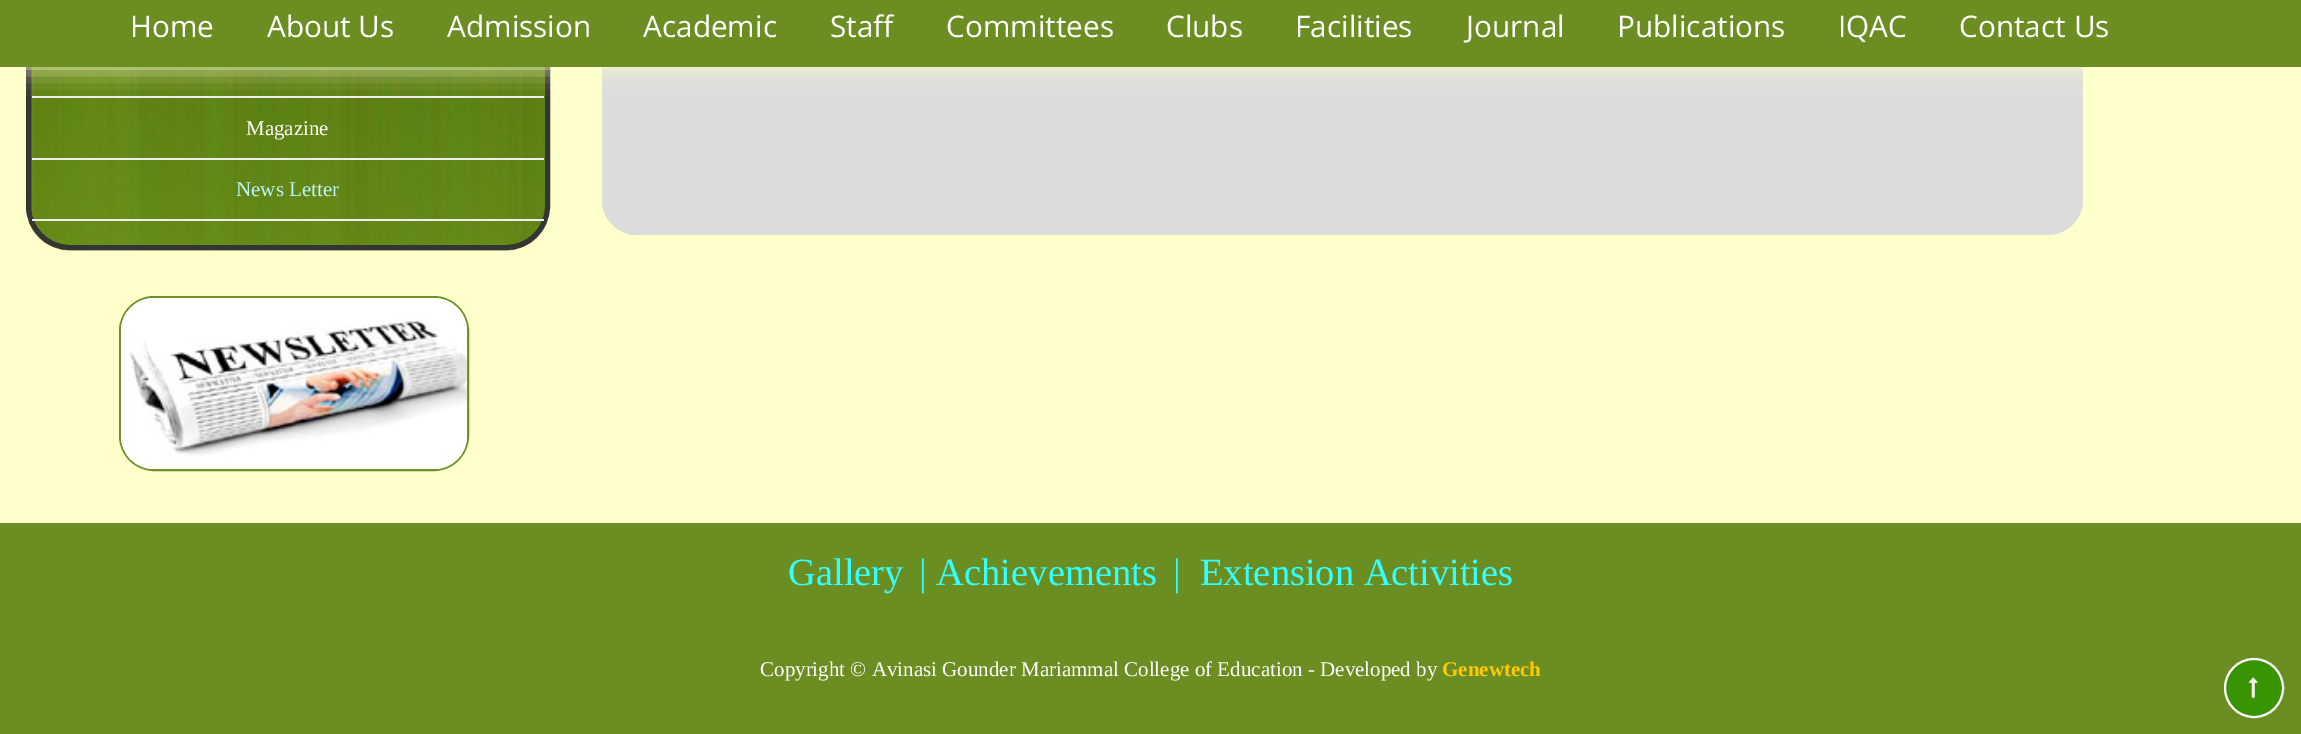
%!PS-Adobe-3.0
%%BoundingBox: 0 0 2301 734
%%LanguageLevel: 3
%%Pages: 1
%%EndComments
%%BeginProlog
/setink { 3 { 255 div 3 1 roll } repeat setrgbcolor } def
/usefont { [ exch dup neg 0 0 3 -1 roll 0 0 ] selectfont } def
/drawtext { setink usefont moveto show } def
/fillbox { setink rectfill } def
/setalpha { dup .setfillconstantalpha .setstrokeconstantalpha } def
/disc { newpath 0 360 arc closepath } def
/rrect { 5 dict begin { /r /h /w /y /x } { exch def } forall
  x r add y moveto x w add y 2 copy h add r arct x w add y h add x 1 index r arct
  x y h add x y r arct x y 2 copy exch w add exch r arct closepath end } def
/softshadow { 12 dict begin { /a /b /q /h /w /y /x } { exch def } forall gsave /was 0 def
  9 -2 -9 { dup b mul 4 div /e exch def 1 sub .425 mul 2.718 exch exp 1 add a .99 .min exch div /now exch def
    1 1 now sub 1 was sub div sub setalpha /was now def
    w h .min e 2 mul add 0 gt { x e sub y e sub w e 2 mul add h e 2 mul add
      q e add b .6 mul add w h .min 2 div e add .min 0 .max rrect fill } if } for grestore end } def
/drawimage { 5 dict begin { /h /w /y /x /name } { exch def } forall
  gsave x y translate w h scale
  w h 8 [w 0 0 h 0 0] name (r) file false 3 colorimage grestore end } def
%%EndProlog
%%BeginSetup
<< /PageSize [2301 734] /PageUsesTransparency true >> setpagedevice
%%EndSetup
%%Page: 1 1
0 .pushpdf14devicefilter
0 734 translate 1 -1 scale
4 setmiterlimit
0 0 2301 734 255 255 204 fillbox
(assets/img1.rgb) 26 67 524 184 drawimage
53 53 53 setink
5 setlinewidth
28.5 -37.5 519 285 41.5 rrect stroke
32 96 512 2 238 238 238 fillbox
220 220 220 setink
602 -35 1481 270 35 rrect fill
255 255 204 setink
0 0 2301 67 0 13 1 softshadow
0 0 2301 67 107 142 35 fillbox
(Home) 130 37 /OpenSans-Regular 29.75 255 255 255 drawtext
(About Us) 267 37 /OpenSans-Regular 29.75 255 255 255 drawtext
(Admission) 447 37 /OpenSans-Regular 29.75 255 255 255 drawtext
(Academic) 643 37 /OpenSans-Regular 29.75 255 255 255 drawtext
(Staff) 830 37 /OpenSans-Regular 29.75 255 255 255 drawtext
(Committees) 946 37 /OpenSans-Regular 29.75 255 255 255 drawtext
(Clubs) 1166 37 /OpenSans-Regular 29.75 255 255 255 drawtext
(Facilities) 1295 37 /OpenSans-Regular 29.75 255 255 255 drawtext
(Journal) 1466 37 /OpenSans-Regular 29.75 255 255 255 drawtext
(Publications) 1617 37 /OpenSans-Regular 29.75 255 255 255 drawtext
(IQAC) 1838 37 /OpenSans-Regular 29.75 255 255 255 drawtext
(Contact Us) 1959 37 /OpenSans-Regular 29.75 255 255 255 drawtext
(Magazine) 246 135 /LiberationSerif-Regular 21 255 255 255 drawtext
32 158 512 2 238 238 238 fillbox
(News Letter) 236 196 /LiberationSerif-Regular 21 189 244 246 drawtext
32 219 512 2 238 238 238 fillbox
107 142 35 setink
2 setlinewidth
120 297 348 173 34 rrect stroke
(assets/img2.rgb) 120 297 348 173 drawimage
0 523 2301 211 107 142 35 fillbox
(Gallery) 788 585 /LiberationSerif-Regular 38.5 51 255 255 drawtext
(| Achievements) 919 585 /LiberationSerif-Regular 38.5 51 255 255 drawtext
(|  Extension Activities) 1173 585 /LiberationSerif-Regular 38.5 51 255 255 drawtext
(Copyright © Avinasi Gounder Mariammal College of Education - Developed by) 760 676 /LiberationSerif-Regular 21 255 255 255 drawtext
(Genewtech) 1442 676 /LiberationSerif-Bold 21 255 200 0 drawtext
56 148 1 setink
2254 688 29 disc gsave fill grestore
255 255 255 setink
stroke
(assets/img3.rgb) 2248 677 10 21 drawimage
.poppdf14devicefilter showpage
%%EOF
